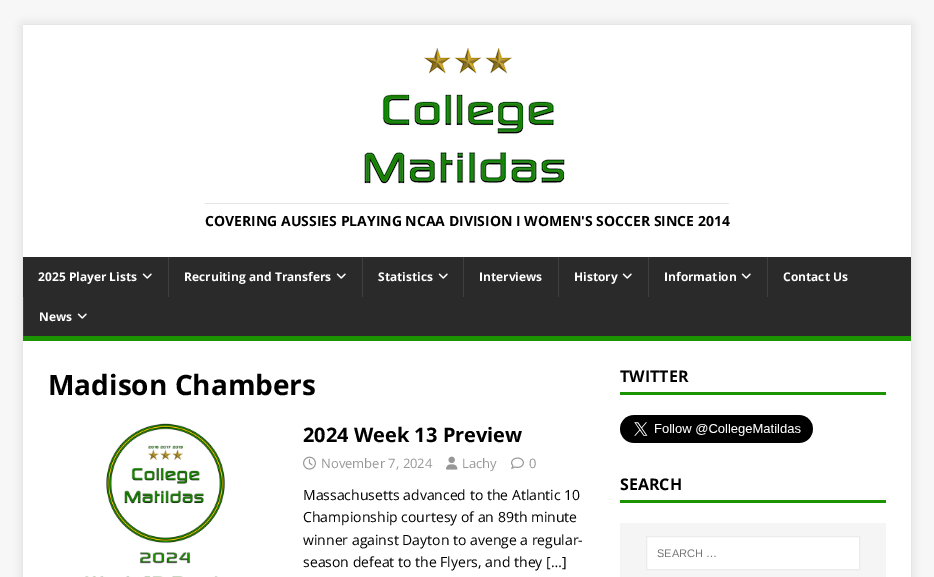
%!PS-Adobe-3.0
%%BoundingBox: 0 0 934 577
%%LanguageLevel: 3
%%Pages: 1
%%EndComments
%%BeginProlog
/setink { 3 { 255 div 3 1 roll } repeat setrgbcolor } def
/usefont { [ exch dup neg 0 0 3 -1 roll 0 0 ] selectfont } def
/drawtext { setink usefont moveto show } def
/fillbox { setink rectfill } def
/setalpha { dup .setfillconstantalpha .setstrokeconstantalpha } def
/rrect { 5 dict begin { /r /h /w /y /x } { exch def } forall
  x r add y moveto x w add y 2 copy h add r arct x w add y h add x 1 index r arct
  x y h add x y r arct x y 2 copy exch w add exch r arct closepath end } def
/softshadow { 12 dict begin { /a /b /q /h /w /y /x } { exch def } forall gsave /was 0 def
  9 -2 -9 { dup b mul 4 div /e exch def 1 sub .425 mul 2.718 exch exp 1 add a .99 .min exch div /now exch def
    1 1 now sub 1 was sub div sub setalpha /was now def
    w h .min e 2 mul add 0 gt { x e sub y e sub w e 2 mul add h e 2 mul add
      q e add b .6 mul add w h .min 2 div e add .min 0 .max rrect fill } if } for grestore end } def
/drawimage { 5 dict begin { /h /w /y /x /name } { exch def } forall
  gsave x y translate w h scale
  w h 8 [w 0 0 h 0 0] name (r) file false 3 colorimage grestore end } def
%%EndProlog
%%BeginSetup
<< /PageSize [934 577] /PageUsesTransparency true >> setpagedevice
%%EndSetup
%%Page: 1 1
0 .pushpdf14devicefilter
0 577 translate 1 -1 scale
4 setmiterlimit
0 0 934 577 247 247 247 fillbox
50 50 50 setink
23 25 888 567 0 5 0.17 softshadow
23 25 888 232 255 255 255 fillbox
(assets/img1.rgb) 364 48 201 136 drawimage
205 203 524 1 229 229 229 fillbox
(COVERING AUSSIES PLAYING NCAA DIVISION I WOMEN'S SOCCER SINCE 2014) 205 226 /OpenSans-Bold 14 0 0 0 drawtext
23 257 888 79 42 42 42 fillbox
23 336 888 5 28 147 0 fillbox
(2025 Player Lists) 38 281 /OpenSans-Bold 12 255 255 255 drawtext
(assets/img2.rgb) 142 273 10 6 drawimage
168 257 1 40 63 63 63 fillbox
(Recruiting and Transfers) 184 281 /OpenSans-Bold 12 255 255 255 drawtext
(assets/img2.rgb) 336 273 10 6 drawimage
362 257 1 40 63 63 63 fillbox
(Statistics) 378 281 /OpenSans-Bold 12 255 255 255 drawtext
(assets/img2.rgb) 438 273 10 6 drawimage
463 257 1 40 63 63 63 fillbox
(Interviews) 479 281 /OpenSans-Bold 12 255 255 255 drawtext
558 257 1 40 63 63 63 fillbox
(History) 574 281 /OpenSans-Bold 12 255 255 255 drawtext
(assets/img2.rgb) 622 273 10 6 drawimage
648 257 1 40 63 63 63 fillbox
(Information) 664 281 /OpenSans-Bold 12 255 255 255 drawtext
(assets/img2.rgb) 741 273 10 6 drawimage
767 257 1 40 63 63 63 fillbox
(Contact Us) 783 281 /OpenSans-Bold 12 255 255 255 drawtext
23 297 1 39 63 63 63 fillbox
(News) 39 321 /OpenSans-Bold 12 255 255 255 drawtext
(assets/img2.rgb) 77 313 10 6 drawimage
23 341 888 236 255 255 255 fillbox
(Madison Chambers) 48 395 /OpenSans-Bold 28 0 0 0 drawtext
(assets/img3.rgb) 85 423 140 154 drawimage
(2024 Week 13 Preview) 303 442 /OpenSans-Bold 20 0 0 0 drawtext
(assets/img4.rgb) 303 456 13 14 drawimage
(November 7, 2024) 321 468 /OpenSans-Regular 13 151 151 151 drawtext
(assets/img5.rgb) 446 456 12 14 drawimage
(Lachy) 462 468 /OpenSans-Regular 13 151 151 151 drawtext
(assets/img6.rgb) 511 457 13 12 drawimage
(0) 529 468 /OpenSans-Regular 13 151 151 151 drawtext
(Massachusetts advanced to the Atlantic 10) 303 500 /OpenSans-Regular 14 0 0 0 drawtext
(Championship courtesy of an 89th minute) 303 522 /OpenSans-Regular 14 0 0 0 drawtext
(winner against Dayton to avenge a regular-) 303 545 /OpenSans-Regular 14 0 0 0 drawtext
(season defeat to the Flyers, and they […]) 303 567 /OpenSans-Regular 14 0 0 0 drawtext
620 392 266 3 28 147 0 fillbox
(TWITTER) 620 382 /OpenSans-Bold 16 0 0 0 drawtext
(assets/img7.rgb) 620 415 193 28 drawimage
620 500 266 3 28 147 0 fillbox
(SEARCH) 620 490 /OpenSans-Bold 16 0 0 0 drawtext
620 523 266 54 245 245 245 fillbox
255 255 255 setink
646.5 536.5 moveto 859.5 536.5 lineto 859.5 569.5 lineto 646.5 569.5 lineto closepath gsave fill grestore
235 235 235 setink
stroke
(SEARCH …) 657 557 /LiberationSans-Regular 11 117 117 117 drawtext
.poppdf14devicefilter showpage
%%EOF
